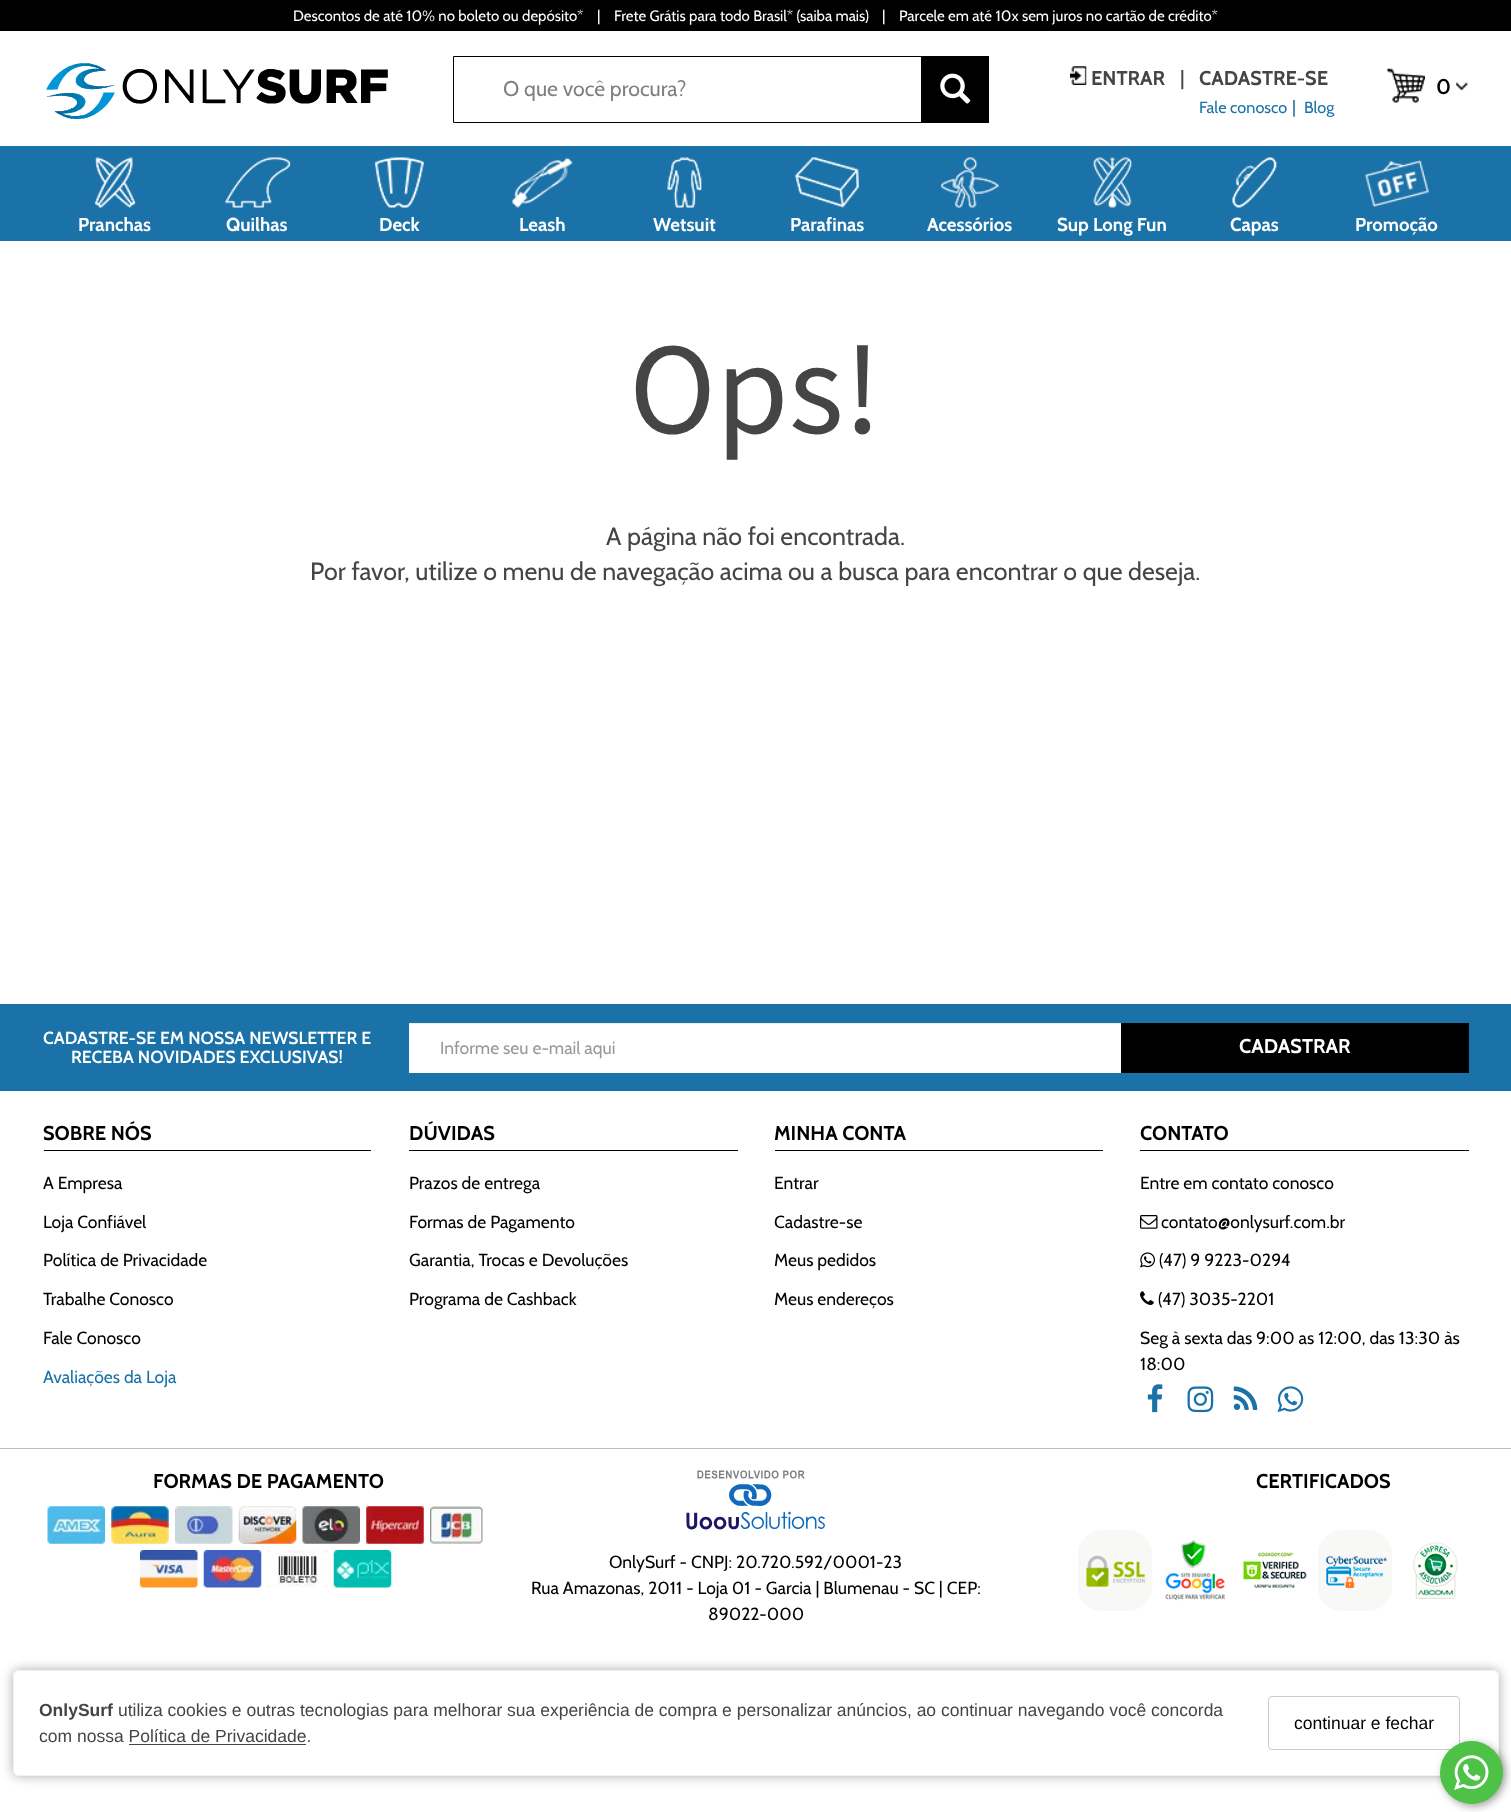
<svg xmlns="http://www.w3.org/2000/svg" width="1511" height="1812">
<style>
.a{font:15px Cabin;fill:#fff}
.b{font:21.25px Cabin;fill:#808080}
.c{font:bold 20px Cabin;fill:#454545}
.d{font:600 20px Cabin;fill:#454545}
.e{font:16.25px Cabin;fill:#1b72a8}
.f{font:17.5px Cabin;fill:#1b72a8}
.g{font:600 21.25px Cabin;fill:#000}
.h{font:bold 18.75px Cabin;fill:#fff}
.i{font:131px Source Sans Pro;fill:#454545}
.j{font:25px Cabin;fill:#454545}
.k{font:600 17.5px Cabin;fill:#fff}
.l{font:17.5px Cabin;fill:#999}
.m{font:bold 20px Cabin;fill:#fff}
.n{font:bold 20px Cabin;fill:#000}
.o{font:17.5px Cabin;fill:#000}
.p{font:bold 17.5px Liberation Sans;fill:#454545}
.q{font:17.5px Liberation Sans;fill:#454545}
.r{font:17.5px Liberation Sans;fill:#000}
</style>
<defs>
<clipPath id="clip1"><path d="M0 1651h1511v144h-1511zm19 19h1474c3.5 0 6 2.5 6 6v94c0 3.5-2.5 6-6 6h-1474c-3.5 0-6-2.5-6-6v-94c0-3.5 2.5-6 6-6z" clip-rule="evenodd"/></clipPath>
<clipPath id="clip2"><path d="M504 76h364v25H504z"/></clipPath>
</defs>
<rect width="100%" height="100%" fill="#fff"/>
<path fill="#000" d="M0 0h1511v31H0z"/>
<image href="1.png" x="46" y="63" width="342" height="56"/>
<path fill="none" stroke="#000" d="M453.5 56.5h470v66H453.5z"/>
<path fill="#000" d="M921 56h68v67H921z"/>
<image href="2.png" x="940" y="73" width="31" height="31"/>
<image href="3.png" x="1070" y="66" width="17" height="19"/>
<image href="4.png" x="1387" y="68" width="38" height="35"/>
<image href="5.png" x="1456" y="82" width="12" height="9"/>
<path fill="#1b72a8" d="M0 146h1511v95H0z"/>
<image href="6.png" x="94" y="157" width="42" height="51"/>
<image href="7.png" x="224" y="157" width="67" height="51"/>
<image href="8.png" x="374" y="157" width="50" height="51"/>
<image href="9.png" x="512" y="157" width="61" height="51"/>
<image href="10.png" x="667" y="157" width="35" height="51"/>
<image href="11.png" x="794" y="157" width="65" height="51"/>
<image href="12.png" x="941" y="157" width="58" height="51"/>
<image href="13.png" x="1093" y="157" width="39" height="51"/>
<image href="14.png" x="1232" y="157" width="45" height="51"/>
<image href="15.png" x="1364" y="160" width="65" height="47"/>
<path fill="#1b72a8" d="M0 1004h1511v87H0z"/>
<path fill="#fff" d="M409 1024h712v49H409z"/>
<path fill="#ececec" d="M409 1023h712v1H409z"/>
<path fill="#000" d="M1121 1023h348v50H1121z"/>
<path fill="#000" d="M44 1150h327v1H44z"/>
<path fill="#000" d="M409 1150h329v1H409z"/>
<path fill="#000" d="M775 1150h328v1H775z"/>
<path fill="#000" d="M1140 1150h329v1H1140z"/>
<image href="16.png" x="1140" y="1215" width="18" height="14"/>
<image href="17.png" x="1140" y="1252" width="15" height="16"/>
<image href="18.png" x="1140" y="1291" width="14" height="14"/>
<image href="19.png" x="1147" y="1384" width="16" height="29"/>
<image href="20.png" x="1187" y="1386" width="27" height="27"/>
<image href="21.png" x="1233" y="1386" width="25" height="24"/>
<image href="22.png" x="1277" y="1386" width="27" height="27"/>
<path fill="#bbb" d="M0 1448h1511v1H0z"/>
<image href="23.png" x="47" y="1506" width="58" height="38"/>
<image href="24.png" x="111" y="1506" width="58" height="38"/>
<image href="25.png" x="175" y="1506" width="58" height="38"/>
<image href="26.png" x="238" y="1506" width="59" height="38"/>
<image href="27.png" x="302" y="1506" width="58" height="38"/>
<image href="28.png" x="366" y="1506" width="58" height="38"/>
<image href="29.png" x="430" y="1506" width="53" height="38"/>
<image href="30.png" x="140" y="1550" width="58" height="38"/>
<image href="31.png" x="203" y="1550" width="59" height="38"/>
<image href="32.png" x="267" y="1550" width="61" height="38"/>
<image href="33.png" x="333" y="1550" width="59" height="38"/>
<image href="34.png" x="1078" y="1530" width="74" height="81"/>
<image href="35.png" x="1165" y="1539" width="61" height="62"/>
<image href="36.png" x="1242" y="1552" width="65" height="36"/>
<image href="37.png" x="1318" y="1530" width="74" height="81"/>
<image href="38.png" x="1413" y="1542" width="45" height="57"/>
<image href="39.png" x="686" y="1470" width="139" height="60"/>
<g clip-path="url(#clip1)">
<rect fill="#aaa" filter="blur(6px)" x="13" y="1670" width="1486" height="106" rx="6"/>
</g>
<rect fill="#fffffffa" stroke="#f2f2f2" x="13.5" y="1670.5" width="1485" height="105" rx="5.5"/>
<path fill="#454545" d="M129 1744h177v1H129z"/>
<rect fill="none" stroke="#ccc" x="1268.5" y="1696.5" width="191" height="53" rx="3.5"/>
<rect fill="#00000066" filter="blur(4px)" x="1443" y="1744" width="62" height="62" rx="31"/>
<circle fill="#4dc247" cx="1471.5" cy="1772.5" r="31.5"/>
<image href="40.png" x="1454" y="1755" width="35" height="35"/>
<text class="a" x="293" y="21">Descontos de até 10% no boleto ou depósito*</text>
<text class="a" x="597" y="21">|</text>
<text class="a" x="614" y="21">Frete Grátis para todo Brasil* (saiba mais)</text>
<text class="a" x="882" y="21">|</text>
<text class="a" x="899" y="21">Parcele em até 10x sem juros no cartão de crédito*</text>
<g clip-path="url(#clip2)">
<text class="b" x="503" y="96">O que você procura?</text>
</g>
<text class="c" x="1091" y="85">ENTRAR</text>
<text class="d" x="1180" y="85">|</text>
<text class="c" x="1199" y="85">CADASTRE-SE</text>
<text class="e" x="1199" y="113">Fale conosco</text>
<text class="f" x="1292" y="113">|</text>
<text class="e" x="1304" y="113">Blog</text>
<text class="g" x="1436" y="94">0</text>
<text class="h" x="78" y="231">Pranchas</text>
<text class="h" x="226" y="231">Quilhas</text>
<text class="h" x="379" y="231">Deck</text>
<text class="h" x="519" y="231">Leash</text>
<text class="h" x="653" y="231">Wetsuit</text>
<text class="h" x="790" y="231">Parafinas</text>
<text class="h" x="927" y="231">Acessórios</text>
<text class="h" x="1057" y="231">Sup Long Fun</text>
<text class="h" x="1230" y="231">Capas</text>
<text class="h" x="1355" y="231">Promoção</text>
<text class="i" x="629" y="433">Ops!</text>
<text class="j" x="606" y="545">A página não foi encontrada.</text>
<text class="j" x="310" y="580">Por favor, utilize o menu de navegação acima ou a busca para encontrar o que deseja.</text>
<text class="k" x="43" y="1044">CADASTRE-SE EM NOSSA NEWSLETTER E</text>
<text class="k" x="71" y="1063">RECEBA NOVIDADES EXCLUSIVAS!</text>
<text class="l" x="440" y="1054">Informe seu e-mail aqui</text>
<text class="m" x="1239" y="1053">CADASTRAR</text>
<text class="n" x="43" y="1140">SOBRE NÓS</text>
<text class="o" x="43" y="1189">A Empresa</text>
<text class="o" x="43" y="1228">Loja Confiável</text>
<text class="o" x="43" y="1266">Política de Privacidade</text>
<text class="o" x="43" y="1305">Trabalhe Conosco</text>
<text class="o" x="43" y="1344">Fale Conosco</text>
<text class="f" x="43" y="1383">Avaliações da Loja</text>
<text class="n" x="409" y="1140">DÚVIDAS</text>
<text class="o" x="409" y="1189">Prazos de entrega</text>
<text class="o" x="409" y="1228">Formas de Pagamento</text>
<text class="o" x="409" y="1266">Garantia, Trocas e Devoluções</text>
<text class="o" x="409" y="1305">Programa de Cashback</text>
<text class="n" x="774" y="1140">MINHA CONTA</text>
<text class="o" x="774" y="1189">Entrar</text>
<text class="o" x="774" y="1228">Cadastre-se</text>
<text class="o" x="774" y="1266">Meus pedidos</text>
<text class="o" x="774" y="1305">Meus endereços</text>
<text class="n" x="1140" y="1140">CONTATO</text>
<text class="o" x="1140" y="1189">Entre em contato conosco</text>
<text class="o" x="1161" y="1228">contato@onlysurf.com.br</text>
<text class="o" x="1159" y="1266">(47) 9 9223-0294</text>
<text class="o" x="1158" y="1305">(47) 3035-2201</text>
<text class="o" x="1140" y="1344">Seg à sexta das 9:00 as 12:00, das 13:30 às</text>
<text class="o" x="1140" y="1370">18:00</text>
<text class="n" x="153" y="1488">FORMAS DE PAGAMENTO</text>
<text class="n" x="1256" y="1488">CERTIFICADOS</text>
<text class="o" x="609" y="1568">OnlySurf - CNPJ: 20.720.592/0001-23</text>
<text class="o" x="531" y="1594">Rua Amazonas, 2011 - Loja 01 - Garcia | Blumenau - SC | CEP:</text>
<text class="o" x="708" y="1620">89022-000</text>
<text class="p" x="39" y="1716">OnlySurf</text>
<text class="q" x="118" y="1716">utiliza cookies e outras tecnologias para melhorar sua experiência de compra e personalizar anúncios, ao continuar navegando você concorda</text>
<text class="q" x="39" y="1742">com nossa Política de Privacidade.</text>
<text class="r" x="1294" y="1729">continuar e fechar</text>
</svg>
